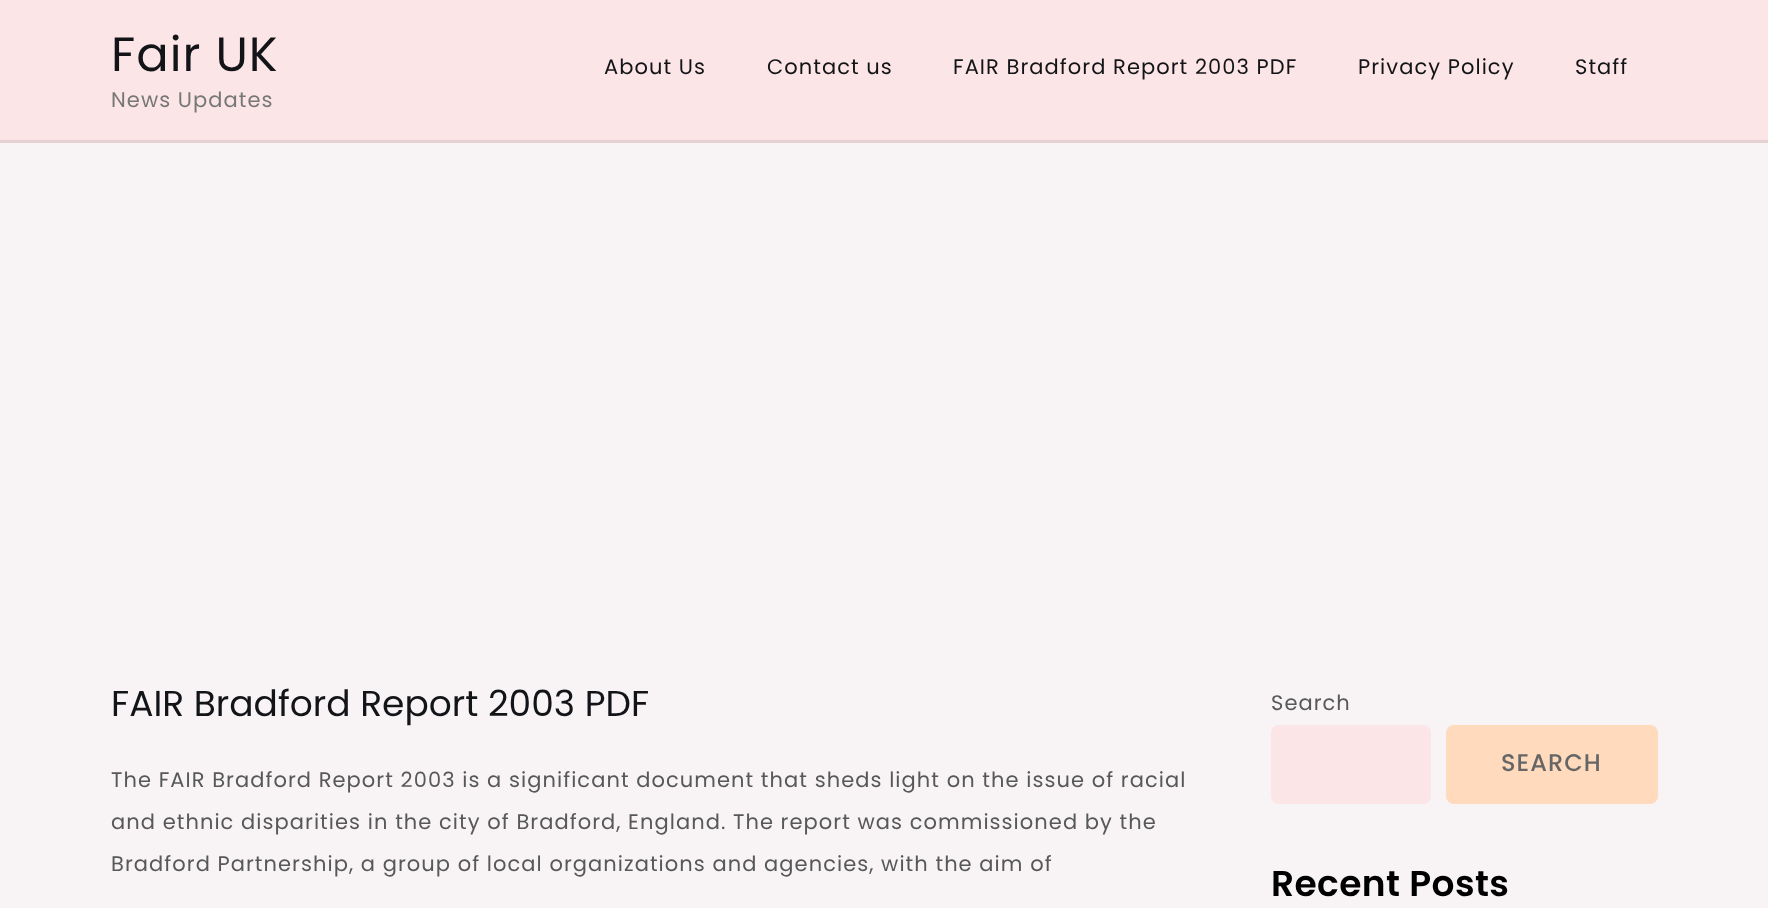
<svg xmlns="http://www.w3.org/2000/svg" width="1768" height="908">
<style>
.a{font:48px Poppins;letter-spacing:1.05px;fill:#121418}
.b{font:21px Poppins;letter-spacing:1.05px;fill:#777}
.c{font:21px Poppins;letter-spacing:1.05px;fill:#121418}
.d{font:36px Poppins;fill:#121418}
.e{font:21px Poppins;letter-spacing:1.05px;fill:#565859}
.f{font:500 24px Poppins;letter-spacing:1.05px;fill:#666}
.g{font:600 36px Poppins;letter-spacing:0.4px;fill:#000}
</style>
<rect width="100%" height="100%" fill="#f8f3f4"/>
<path fill="#fce5e6" d="M0 0h1768v140H0z"/>
<path fill="#e6d1d2" d="M0 140h1768v3H0z"/>
<rect fill="#fce5e6" x="1271" y="725" width="160" height="79" rx="8"/>
<rect fill="#ffdabc" stroke="#ffdabc" stroke-width="3" x="1447.5" y="726.5" width="209" height="76" rx="6.5"/>
<text class="a" x="111" y="71">Fair UK</text>
<text class="b" x="111" y="107">News Updates</text>
<text class="c" x="604" y="74">About Us</text>
<text class="c" x="767" y="74">Contact us</text>
<text class="c" x="953" y="74">FAIR Bradford Report 2003 PDF</text>
<text class="c" x="1358" y="74">Privacy Policy</text>
<text class="c" x="1575" y="74">Staff</text>
<text class="d" x="111" y="716">FAIR Bradford Report 2003 PDF</text>
<text class="e" x="111" y="787">The FAIR Bradford Report 2003 is a significant document that sheds light on the issue of racial</text>
<text class="e" x="111" y="829">and ethnic disparities in the city of Bradford, England. The report was commissioned by the</text>
<text class="e" x="111" y="871">Bradford Partnership, a group of local organizations and agencies, with the aim of</text>
<text class="e" x="1271" y="710">Search</text>
<text class="f" x="1501" y="771">SEARCH</text>
<text class="g" x="1271" y="896">Recent Posts</text>
</svg>
